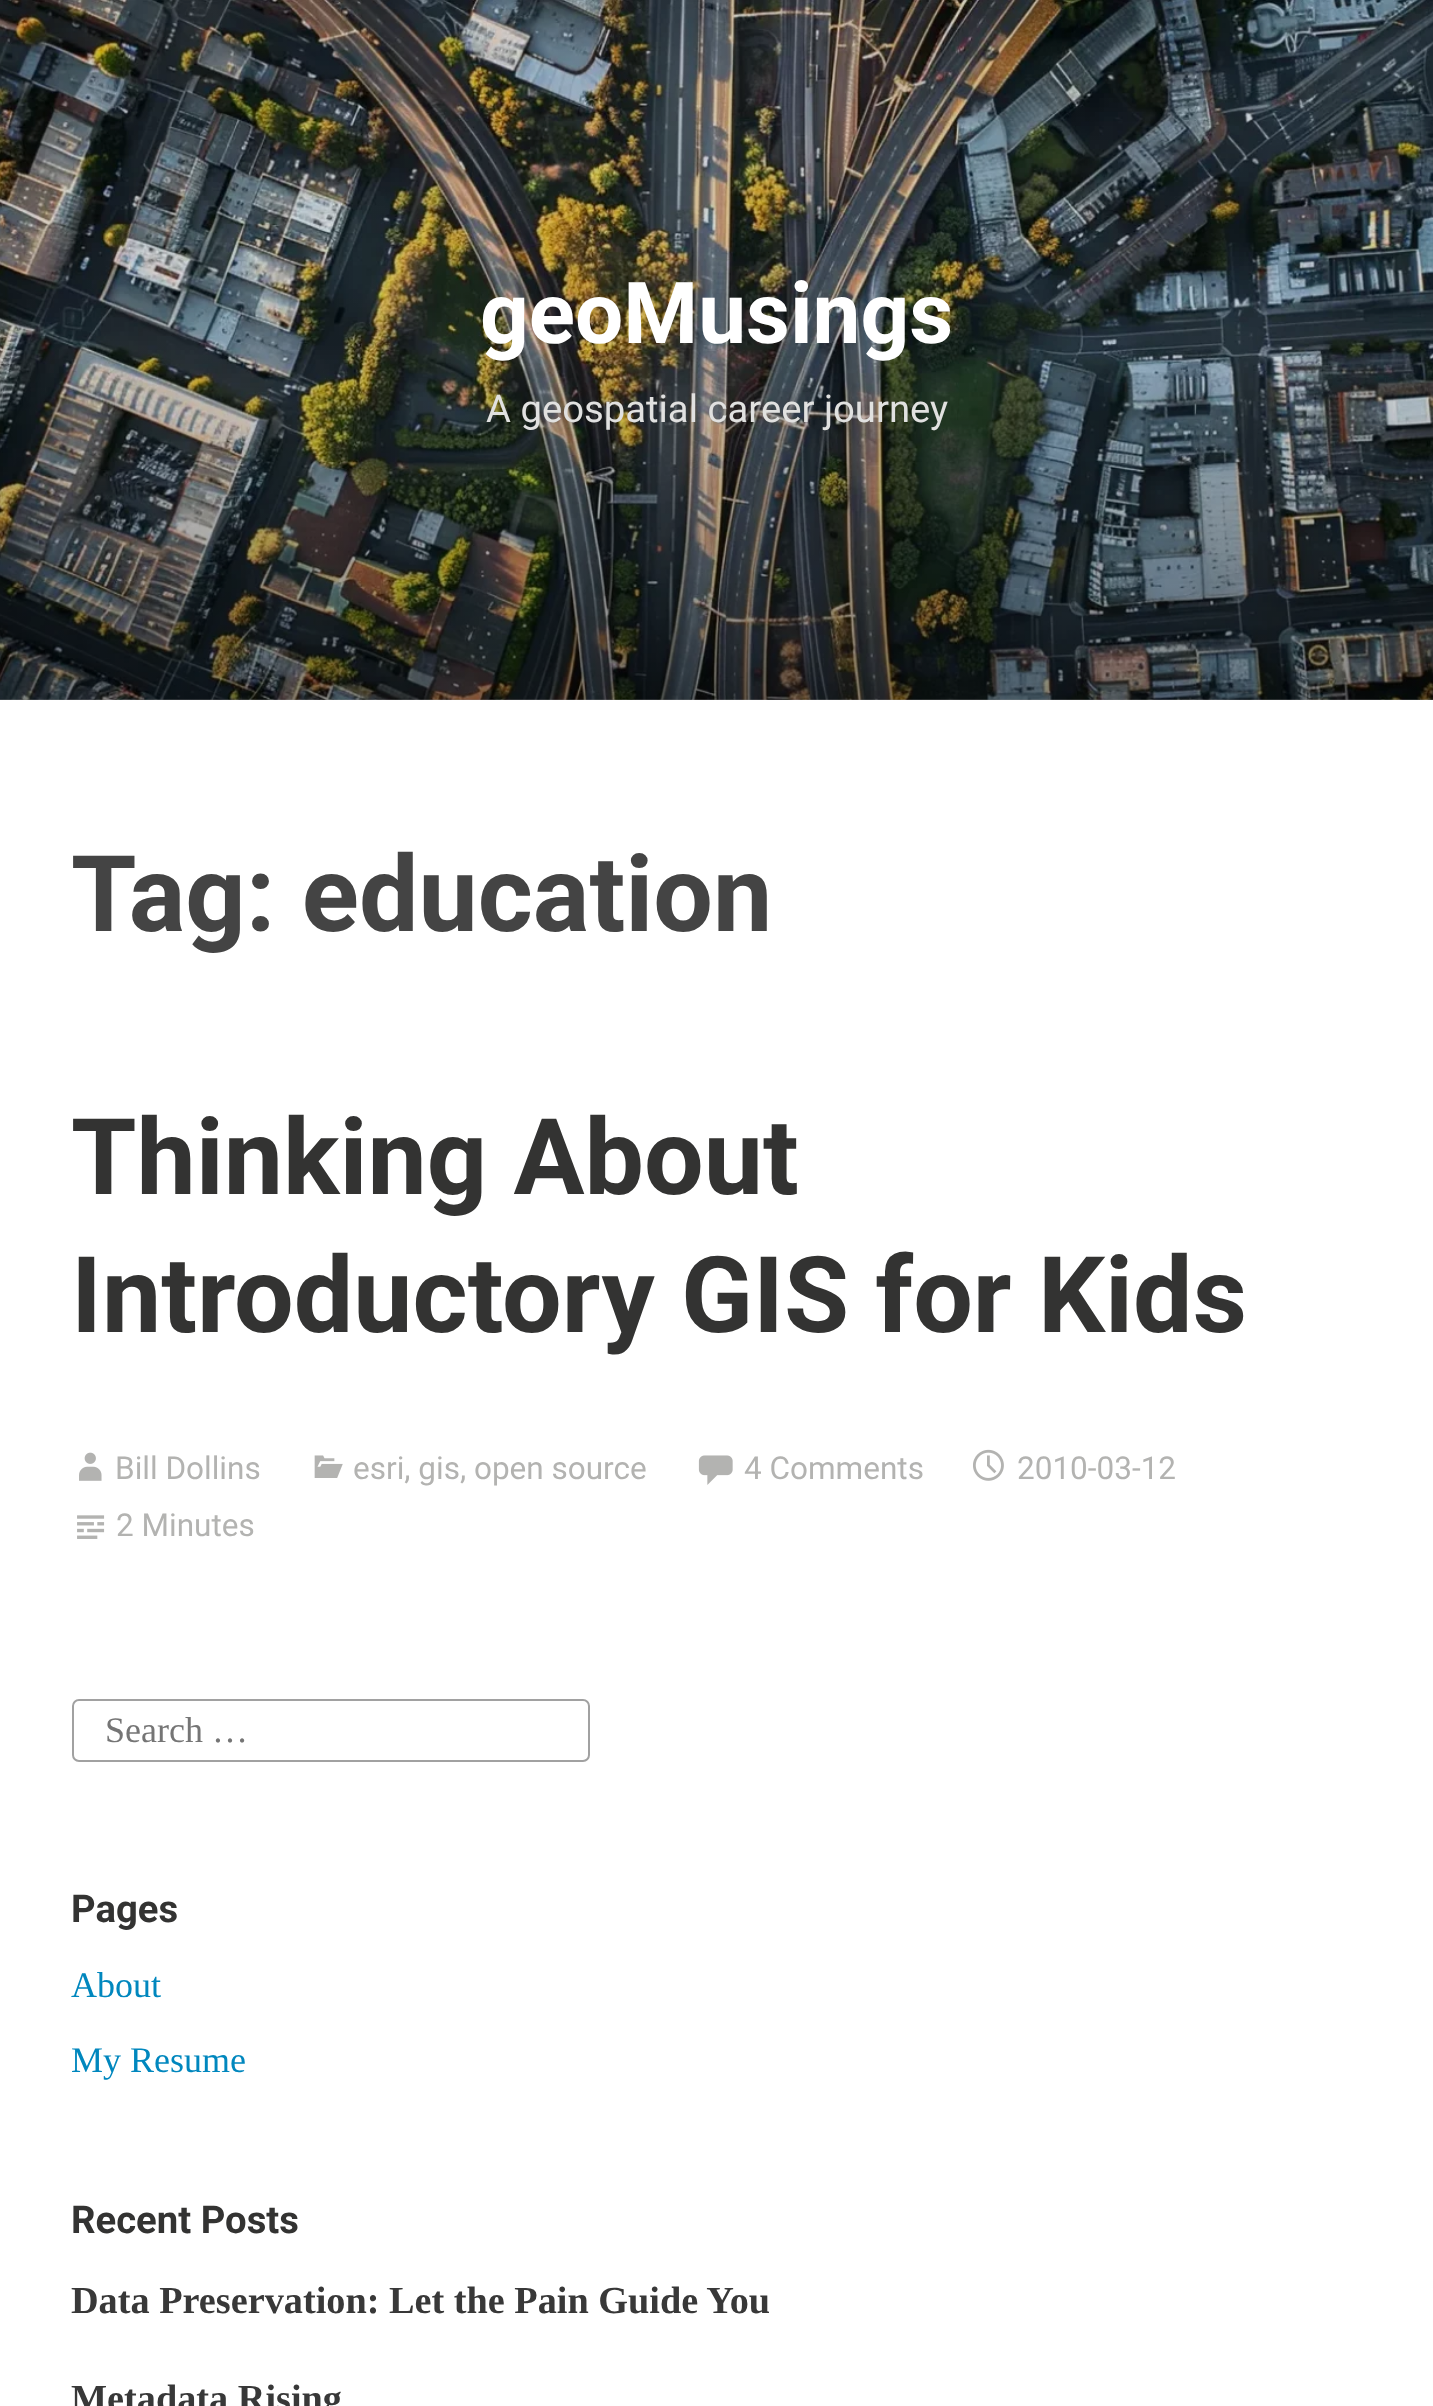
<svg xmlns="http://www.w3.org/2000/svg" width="1433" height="2406">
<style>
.a{font:bold 85.5px Roboto;fill:#fff}
.b{font:38.25px Roboto;fill:#e1e1e0}
.c{font:bold 105.75px Roboto;fill:#444}
.d{font:bold 105.75px Roboto;fill:#333332}
.e{font:31.5px Roboto;fill:#b3b3b1}
.f{font:36px Liberation Serif;fill:#757575}
.g{font:bold 38.25px Roboto;fill:#333332}
.h{font:36px Liberation Serif;fill:#0087be}
.i{font:bold 38.25px Liberation Serif;fill:#383838}
</style>
<defs>
<linearGradient id="g1" gradientUnits="userSpaceOnUse" x1="717" y1="0" x2="717" y2="700"><stop offset="0.5" stop-color="#000" stop-opacity="0.15"/><stop offset="1" stop-color="#000" stop-opacity="0.45"/></linearGradient>
</defs>
<rect width="100%" height="100%" fill="#fff"/>
<image href="1.png" x="0" y="0" width="1433" height="700"/>
<path fill="url(#g1)" d="M0 0h1433v700H0z"/>
<image href="2.png" x="79" y="1452" width="23" height="29"/>
<image href="3.png" x="314" y="1455" width="29" height="23"/>
<image href="4.png" x="698" y="1455" width="35" height="30"/>
<image href="5.png" x="973" y="1449" width="31" height="32"/>
<image href="6.png" x="77" y="1515" width="28" height="24"/>
<rect fill="none" stroke="#a1a1a1" stroke-width="2" x="73" y="1700" width="516" height="61" rx="6"/>
<text class="a" x="480" y="343">geoMusings</text>
<text class="b" x="486" y="422">A geospatial career journey</text>
<text class="c" x="71" y="931">Tag: education</text>
<text class="d" x="71" y="1194">Thinking About</text>
<text class="d" x="71" y="1332">Introductory GIS for Kids</text>
<text class="e" x="115" y="1479">Bill Dollins</text>
<text class="e" x="353" y="1479">esri, gis, open source</text>
<text class="e" x="744" y="1479">4 Comments</text>
<text class="e" x="1017" y="1479">2010-03-12</text>
<text class="e" x="116" y="1536">2 Minutes</text>
<text class="f" x="105" y="1742">Search …</text>
<text class="g" x="71" y="1922">Pages</text>
<text class="h" x="71" y="1997">About</text>
<text class="h" x="71" y="2072">My Resume</text>
<text class="g" x="71" y="2233">Recent Posts</text>
<text class="i" x="71" y="2313">Data Preservation: Let the Pain Guide You</text>
<text class="i" x="71" y="2411">Metadata Rising</text>
</svg>
